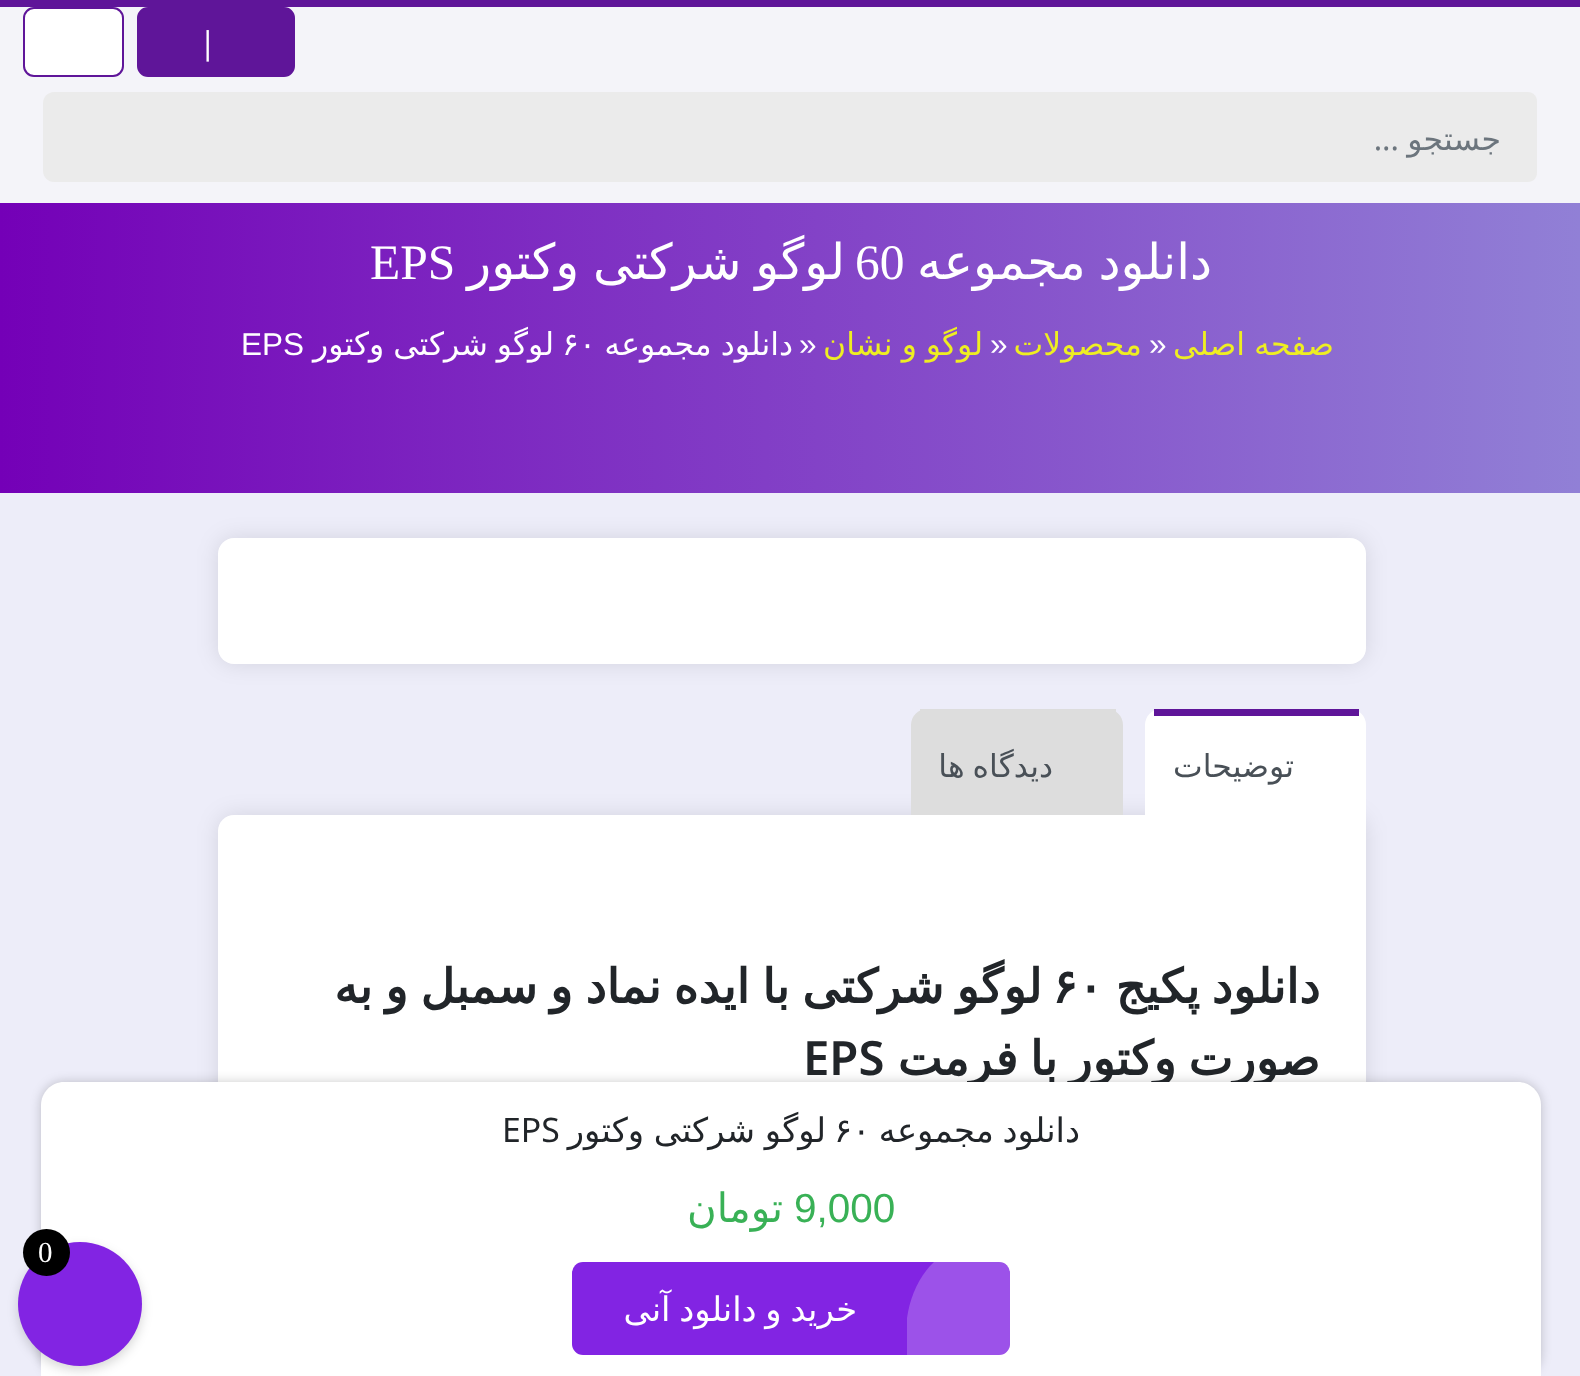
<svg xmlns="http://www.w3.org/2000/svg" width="1580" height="1376">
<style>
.a{font:31.5px Noto Sans;fill:#fff}
.b{font:31.5px DejaVu Sans;direction:rtl;fill:#6c757d}
.c{font:31.5px Noto Sans;direction:rtl;fill:#6c757d}
.d{font:49.5px DejaVu Sans;direction:rtl;fill:#fff}
.e{font:49.5px Liberation Serif;fill:#fff}
.f{font:31.5px DejaVu Sans;direction:rtl;fill:#ee2}
.g{font:31.5px Liberation Sans;fill:#fff}
.h{font:31.5px DejaVu Sans;direction:rtl;fill:#fff}
.i{font:31.5px DejaVu Sans;fill:#fff}
.j{font:31.5px DejaVu Sans;direction:rtl;fill:#495057}
.k{font:bold 47.25px DejaVu Sans;direction:rtl;fill:#212529}
.l{font:bold 47.25px DejaVu Sans;fill:#212529}
.m{font:600 47.25px Noto Sans;fill:#212529}
.n{font:33.75px DejaVu Sans;direction:rtl;fill:#212529}
.o{font:33.75px DejaVu Sans;fill:#212529}
.p{font:33.75px Noto Sans;fill:#212529}
.q{font:40.5px Liberation Sans;fill:#39b156}
.r{font:40.5px DejaVu Sans;direction:rtl;fill:#39b156}
.s{font:33.75px DejaVu Sans;direction:rtl;fill:#fff}
.t{font:29px Liberation Serif;fill:#fff}
</style>
<defs>
<linearGradient id="g1" gradientUnits="userSpaceOnUse" x1="0" y1="348" x2="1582" y2="348"><stop offset="0" stop-color="#7400b7"/><stop offset="1" stop-color="#9180d6"/></linearGradient>
<clipPath id="clip1"><path d="M263 893h1058v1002H263z"/></clipPath>
</defs>
<rect width="100%" height="100%" fill="#ededf9"/>
<path fill="#5f1599" d="M0 0h1580v7H0z"/>
<path fill="#f4f4f9" d="M0 7h1580v196H0z"/>
<rect fill="#5f1599" stroke="#5f1599" stroke-width="2" x="138" y="8" width="156" height="68" rx="10"/>
<rect fill="#fff" stroke="#5f1599" stroke-width="2" x="24" y="8" width="99" height="68" rx="10"/>
<path fill="#ebebeb" d="M126 92h1402c5 0 9 4 9 9v72c0 5-4 9-9 9h-1402z"/>
<path fill="#ebebeb" d="M54 92h72v90h-72c-6 0-11-5-11-11v-68c0-6 5-11 11-11z"/>
<path fill="url(#g1)" d="M0 203h1580v290H0z"/>
<rect fill="#0000001a" filter="blur(11px)" x="218" y="538" width="1148" height="126" rx="16"/>
<rect fill="#fff" x="218" y="538" width="1148" height="126" rx="16"/>
<rect fill="#0000001a" filter="blur(11px)" x="218" y="815" width="1148" height="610" rx="16"/>
<path fill="#fff" d="M1161 709h189c9 0 16 7 16 16v90h-221v-90c0-9 7-16 16-16z"/>
<path fill="#5f1599" d="M1154 709h205v7H1154z"/>
<path fill="#ddd" d="M927 709h180c9 0 16 7 16 16v90h-212v-90c0-9 7-16 16-16z"/>
<path fill="#ddd" d="M920 709h196v3H920z"/>
<path fill="#fff" d="M234 815h1132v561c0 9-7 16-16 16h-1116c-9 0-16-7-16-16v-545c0-9 7-16 16-16z"/>
<rect fill="#00000033" filter="blur(5.5px)" x="41" y="1082" width="1500" height="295" rx="23"/>
<text class="a" x="199" y="54">|</text>
<text class="b" x="1501" y="150">جستجو</text>
<text class="c" x="1399" y="150">...</text>
<text class="d" x="1212" y="279" word-spacing="-3">دانلود مجموعه</text>
<text class="e" x="855" y="279">60</text>
<text class="d" x="845" y="279" word-spacing="-2">لوگو شرکتی وکتور</text>
<text class="e" x="370" y="279">EPS</text>
<text class="f" x="1334" y="355" word-spacing="-1">صفحه اصلی</text>
<text class="g" x="1149" y="355">»</text>
<text class="f" x="1142" y="355">محصولات</text>
<text class="g" x="990" y="355">»</text>
<text class="f" x="983" y="355" word-spacing="-1">لوگو و نشان</text>
<text class="g" x="799" y="355">»</text>
<text class="h" x="793" y="355" word-spacing="-1">دانلود مجموعه</text>
<text class="i" x="562" y="355">۶۰</text>
<text class="h" x="554" y="355" word-spacing="-1">لوگو شرکتی وکتور</text>
<text class="g" x="241" y="355">EPS</text>
<text class="j" x="1294" y="777">توضیحات</text>
<text class="j" x="1053" y="777" word-spacing="-2">دیدگاه ها</text>
<text class="k" x="1320" y="1003" word-spacing="-3">دانلود پکیج</text>
<text class="k" x="1042" y="1003" word-spacing="-2.5">لوگو شرکتی با ایده نماد و سمبل و به</text>
<text class="l" x="1052" y="1003">۶۰</text>
<g clip-path="url(#clip1)">
<text class="k" x="1320" y="1075" word-spacing="-3">صورت وکتور با فرمت</text>
</g>
<text class="m" x="803" y="1075">EPS</text>
<path fill="#fff" d="M64 1082h1454c12.5 0 23 10.5 23 23v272h-1500v-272c0-12.5 10.5-23 23-23z"/>
<text class="n" x="1080" y="1142" word-spacing="-2">دانلود مجموعه</text>
<text class="o" x="834" y="1142">۶۰</text>
<text class="n" x="826" y="1142" word-spacing="-1">لوگو شرکتی وکتور</text>
<text class="p" x="502" y="1142">EPS</text>
<text class="q" x="794" y="1222">9,000</text>
<text class="r" x="783" y="1222">تومان</text>
<rect fill="#8224e3" x="572" y="1262" width="438" height="93" rx="11"/>
<path fill="#ffffff36" d="M907 1355v-18v-19c3-21 12-42 27-56h65c6 0 11 5 11 11v71c0 6-5 11-11 11z"/>
<text class="s" x="857" y="1321" word-spacing="-2">خرید و دانلود آنی</text>
<rect fill="#00000029" filter="blur(5.5px)" x="18" y="1247" width="124" height="123" rx="61.5"/>
<circle fill="#8224e3" cx="80" cy="1304" r="62"/>
<circle fill="#000" cx="46.5" cy="1252.5" r="23.5"/>
<text class="t" x="38" y="1262">0</text>
</svg>
